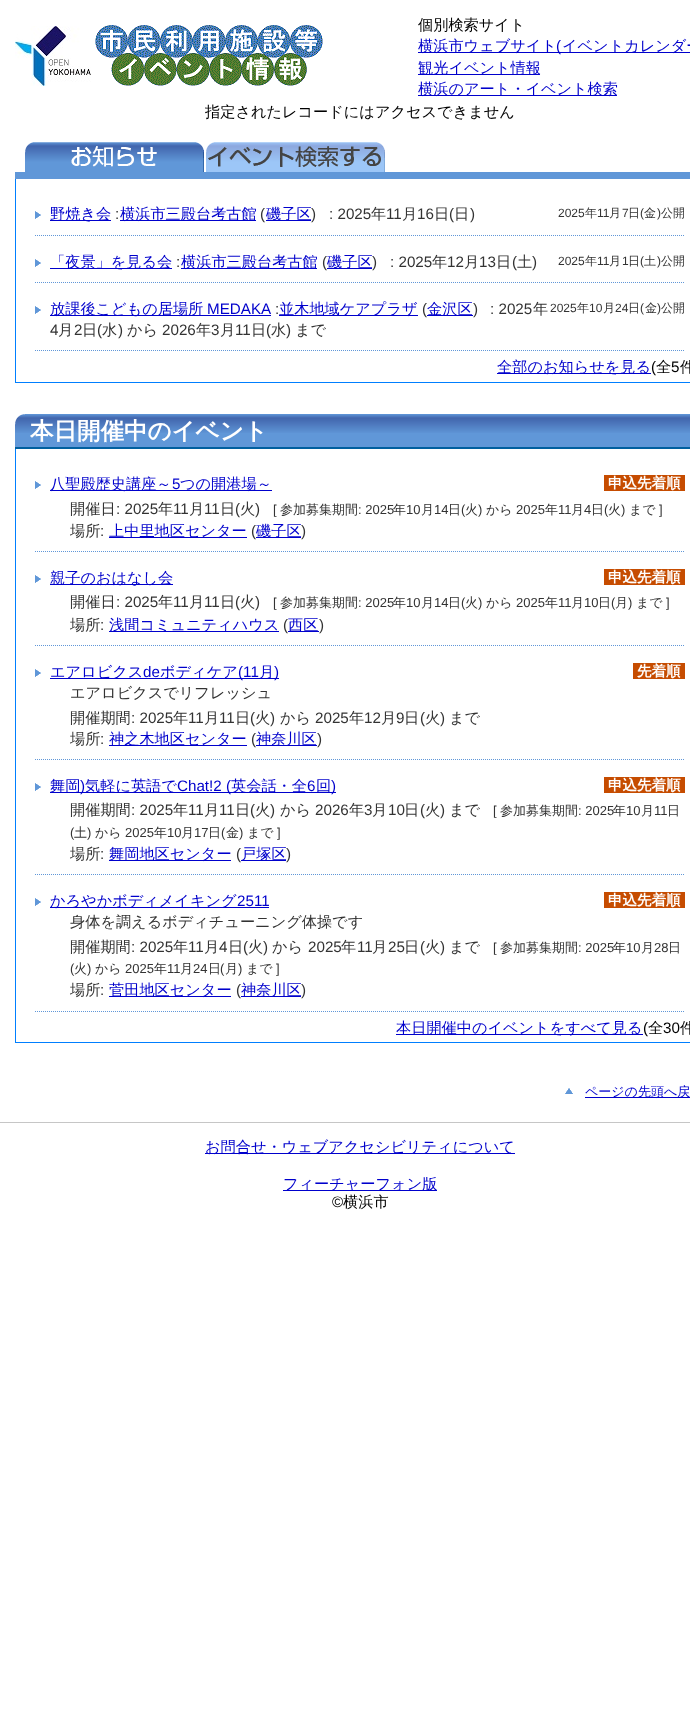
<svg xmlns="http://www.w3.org/2000/svg" width="690" height="1718">
<style>
.a{font:500 15.2px WenQuanYi Zen Hei;fill:#000}
.b{font:500 15.2px WenQuanYi Zen Hei;fill:#00c}
.c{font:15.2px Liberation Sans;fill:#00c}
.d{font:15.2px Liberation Sans;fill:#333}
.e{font:500 15.2px WenQuanYi Zen Hei;fill:#333}
.f{font:12px Liberation Sans;fill:#333}
.g{font:500 12px WenQuanYi Zen Hei;fill:#333}
.h{font:15.2px Liberation Sans;fill:#000}
.i{font:bold 23.5px WenQuanYi Zen Hei;fill:#fff}
.j{font:bold 14.5px WenQuanYi Zen Hei;fill:#fff}
.k{font:13px Liberation Sans;fill:#333}
.l{font:500 13px WenQuanYi Zen Hei;fill:#333}
.m{font:500 13px WenQuanYi Zen Hei;fill:#00c}
</style>
<rect width="100%" height="100%" fill="#fff"/>
<image href="1.png" x="15" y="26" width="76" height="60"/>
<image href="2.png" x="95" y="25" width="228" height="61"/>
<path fill="#00c" d="M418 52h272v1H418z"/>
<path fill="#00c" d="M418 74h122v1H418z"/>
<path fill="#00c" d="M418 95h199v1H418z"/>
<path fill="#6097d8" d="M15 172h675v7H15z"/>
<image href="3.png" x="25" y="142" width="179" height="30"/>
<image href="4.png" x="206" y="142" width="179" height="30"/>
<path fill="#007fff" d="M15 382h675v1H15z"/>
<path fill="#007fff" d="M15 179h1v204H15z"/>
<image href="5.png" x="35" y="211" width="6" height="8"/>
<path fill="none" stroke="#6097d8" stroke-dasharray="1 1" d="M35 235.5h650"/>
<path fill="#00c" d="M50 220h61v1H50z"/>
<path fill="#00c" d="M120 220h136v1H120z"/>
<path fill="#00c" d="M266 220h45v1H266z"/>
<image href="5.png" x="35" y="259" width="6" height="8"/>
<path fill="none" stroke="#6097d8" stroke-dasharray="1 1" d="M35 282.5h650"/>
<path fill="#00c" d="M50 268h122v1H50z"/>
<path fill="#00c" d="M181 268h136v1H181z"/>
<path fill="#00c" d="M327 268h45v1H327z"/>
<image href="5.png" x="35" y="306" width="6" height="8"/>
<path fill="none" stroke="#6097d8" stroke-dasharray="1 1" d="M35 350.5h650"/>
<path fill="#00c" d="M50 315h221v1H50z"/>
<path fill="#00c" d="M279 315h139v1H279z"/>
<path fill="#00c" d="M427 315h46v1H427z"/>
<path fill="#00c" d="M497 373h154v1H497z"/>
<path fill="#6097d8" d="M15 433h675v14H15z"/>
<image href="6.png" x="15" y="414" width="675" height="19"/>
<path fill="#005f9f" d="M15 447h675v2H15z"/>
<image href="7.png" x="15" y="414" width="10" height="11"/>
<path fill="#007fff" d="M15 1042h675v1H15z"/>
<path fill="#007fff" d="M15 449h1v594H15z"/>
<image href="5.png" x="35" y="481" width="6" height="8"/>
<path fill="none" stroke="#6097d8" stroke-dasharray="1 1" d="M35 551.5h650"/>
<path fill="#00c" d="M50 490h222v1H50z"/>
<path fill="#c64c00" d="M604 475h81v16H604z"/>
<path fill="#00c" d="M109 537h138v1H109z"/>
<path fill="#00c" d="M256 537h45v1H256z"/>
<image href="5.png" x="35" y="575" width="6" height="8"/>
<path fill="none" stroke="#6097d8" stroke-dasharray="1 1" d="M35 645.5h650"/>
<path fill="#00c" d="M50 584h123v1H50z"/>
<path fill="#c64c00" d="M604 569h81v16H604z"/>
<path fill="#00c" d="M109 631h170v1H109z"/>
<image href="5.png" x="35" y="669" width="6" height="8"/>
<path fill="none" stroke="#6097d8" stroke-dasharray="1 1" d="M35 759.5h650"/>
<path fill="#00c" d="M50 678h229v1H50z"/>
<path fill="#c64c00" d="M633 663h52v16H633z"/>
<path fill="#00c" d="M109 745h138v1H109z"/>
<path fill="#00c" d="M256 745h61v1H256z"/>
<image href="5.png" x="35" y="783" width="6" height="8"/>
<path fill="none" stroke="#6097d8" stroke-dasharray="1 1" d="M35 874.5h650"/>
<path fill="#00c" d="M50 792h286v1H50z"/>
<path fill="#c64c00" d="M604 777h81v16H604z"/>
<path fill="#00c" d="M109 860h122v1H109z"/>
<path fill="#00c" d="M241 860h45v1H241z"/>
<image href="5.png" x="35" y="898" width="6" height="8"/>
<path fill="none" stroke="#6097d8" stroke-dasharray="1 1" d="M35 1011.5h650"/>
<path fill="#00c" d="M50 907h219v1H50z"/>
<path fill="#c64c00" d="M604 892h81v16H604z"/>
<path fill="#00c" d="M109 996h122v1H109z"/>
<path fill="#00c" d="M241 996h60v1H241z"/>
<path fill="#00c" d="M396 1034h247v1H396z"/>
<image href="8.png" x="565" y="1088" width="8" height="6"/>
<path fill="#00c" d="M585 1097h105v1H585z"/>
<path fill="#c6c6c6" d="M0 1122h690v1H0z"/>
<path fill="#00c" d="M205 1153h310v1H205z"/>
<path fill="#00c" d="M283 1190h154v1H283z"/>
<text class="a" x="418" y="30">個別検索サイト</text>
<text class="b" x="418" y="51">横浜市ウェブサイト</text>
<text class="c" x="556" y="51">(</text>
<text class="b" x="562" y="51">イベントカレンダー</text>
<text class="b" x="418" y="73">観光イベント情報</text>
<text class="b" x="418" y="94">横浜のアート・イベント検索</text>
<text class="a" x="205" y="117">指定されたレコードにはアクセスできません</text>
<text class="b" x="50" y="219">野焼き会</text>
<text class="d" x="115" y="219">:</text>
<text class="b" x="120" y="219">横浜市三殿台考古館</text>
<text class="d" x="260" y="219">(</text>
<text class="b" x="266" y="219">磯子区</text>
<text class="d" x="311" y="219">)</text>
<text class="d" x="329" y="219">: 2025</text>
<text class="e" x="371" y="219">年</text>
<text class="d" x="386" y="219">11</text>
<text class="e" x="402" y="219">月</text>
<text class="d" x="417" y="219">16</text>
<text class="e" x="434" y="219">日</text>
<text class="d" x="449" y="219">(</text>
<text class="e" x="454" y="219">日</text>
<text class="d" x="470" y="219">)</text>
<text class="f" x="558" y="217">2025</text>
<text class="g" x="585" y="217">年</text>
<text class="f" x="597" y="217">11</text>
<text class="g" x="609" y="217">月</text>
<text class="f" x="622" y="217">7</text>
<text class="g" x="628" y="217">日</text>
<text class="f" x="640" y="217">(</text>
<text class="g" x="644" y="217">金</text>
<text class="f" x="657" y="217">)</text>
<text class="g" x="661" y="217">公開</text>
<text class="b" x="50" y="267">「夜景」を見る会</text>
<text class="d" x="176" y="267">:</text>
<text class="b" x="181" y="267">横浜市三殿台考古館</text>
<text class="d" x="322" y="267">(</text>
<text class="b" x="327" y="267">磯子区</text>
<text class="d" x="372" y="267">)</text>
<text class="d" x="390" y="267">: 2025</text>
<text class="e" x="432" y="267">年</text>
<text class="d" x="447" y="267">12</text>
<text class="e" x="464" y="267">月</text>
<text class="d" x="479" y="267">13</text>
<text class="e" x="496" y="267">日</text>
<text class="d" x="512" y="267">(</text>
<text class="e" x="517" y="267">土</text>
<text class="d" x="532" y="267">)</text>
<text class="f" x="558" y="265">2025</text>
<text class="g" x="585" y="265">年</text>
<text class="f" x="597" y="265">11</text>
<text class="g" x="609" y="265">月</text>
<text class="f" x="622" y="265">1</text>
<text class="g" x="628" y="265">日</text>
<text class="f" x="640" y="265">(</text>
<text class="g" x="644" y="265">土</text>
<text class="f" x="657" y="265">)</text>
<text class="g" x="661" y="265">公開</text>
<text class="b" x="50" y="314">放課後こどもの居場所</text>
<text class="c" x="207" y="314">MEDAKA</text>
<text class="d" x="275" y="314">:</text>
<text class="b" x="279" y="314">並木地域ケアプラザ</text>
<text class="d" x="422" y="314">(</text>
<text class="b" x="427" y="314">金沢区</text>
<text class="d" x="473" y="314">)</text>
<text class="d" x="490" y="314">: 2025</text>
<text class="e" x="533" y="314">年</text>
<text class="f" x="550" y="312">2025</text>
<text class="g" x="577" y="312">年</text>
<text class="f" x="589" y="312">10</text>
<text class="g" x="603" y="312">月</text>
<text class="f" x="615" y="312">24</text>
<text class="g" x="628" y="312">日</text>
<text class="f" x="640" y="312">(</text>
<text class="g" x="645" y="312">金</text>
<text class="f" x="657" y="312">)</text>
<text class="g" x="661" y="312">公開</text>
<text class="d" x="50" y="335">4</text>
<text class="e" x="58" y="335">月</text>
<text class="d" x="74" y="335">2</text>
<text class="e" x="82" y="335">日</text>
<text class="d" x="97" y="335">(</text>
<text class="e" x="102" y="335">水</text>
<text class="d" x="118" y="335">)</text>
<text class="e" x="127" y="335">から</text>
<text class="d" x="162" y="335">2026</text>
<text class="e" x="196" y="335">年</text>
<text class="d" x="211" y="335">3</text>
<text class="e" x="220" y="335">月</text>
<text class="d" x="235" y="335">11</text>
<text class="e" x="251" y="335">日</text>
<text class="d" x="266" y="335">(</text>
<text class="e" x="271" y="335">水</text>
<text class="d" x="286" y="335">)</text>
<text class="e" x="295" y="335">まで</text>
<text class="b" x="497" y="372">全部のお知らせを見る</text>
<text class="h" x="651" y="372">(</text>
<text class="a" x="656" y="372">全</text>
<text class="h" x="671" y="372">5</text>
<text class="a" x="680" y="372">件</text>
<text class="i" x="30" y="439">本日開催中のイベント</text>
<text class="b" x="50" y="489">八聖殿歴史講座～</text>
<text class="c" x="172" y="489">5</text>
<text class="b" x="180" y="489">つの開港場～</text>
<text class="j" x="608" y="488">申込先着順</text>
<text class="e" x="70" y="514">開催日</text>
<text class="d" x="116" y="514">: 2025</text>
<text class="e" x="158" y="514">年</text>
<text class="d" x="173" y="514">11</text>
<text class="e" x="189" y="514">月</text>
<text class="d" x="204" y="514">11</text>
<text class="e" x="220" y="514">日</text>
<text class="d" x="235" y="514">(</text>
<text class="e" x="240" y="514">火</text>
<text class="d" x="255" y="514">)</text>
<text class="k" x="273" y="514">[</text>
<text class="l" x="280" y="514">参加募集期間</text>
<text class="k" x="358" y="514">: 2025</text>
<text class="l" x="393" y="514">年</text>
<text class="k" x="406" y="514">10</text>
<text class="l" x="421" y="514">月</text>
<text class="k" x="434" y="514">14</text>
<text class="l" x="448" y="514">日</text>
<text class="k" x="461" y="514">(</text>
<text class="l" x="465" y="514">火</text>
<text class="k" x="478" y="514">)</text>
<text class="l" x="486" y="514">から</text>
<text class="k" x="516" y="514">2025</text>
<text class="l" x="545" y="514">年</text>
<text class="k" x="558" y="514">11</text>
<text class="l" x="571" y="514">月</text>
<text class="k" x="584" y="514">4</text>
<text class="l" x="591" y="514">日</text>
<text class="k" x="604" y="514">(</text>
<text class="l" x="608" y="514">火</text>
<text class="k" x="621" y="514">)</text>
<text class="l" x="629" y="514">まで</text>
<text class="k" x="659" y="514">]</text>
<text class="e" x="70" y="536">場所</text>
<text class="d" x="100" y="536">:</text>
<text class="b" x="109" y="536">上中里地区センター</text>
<text class="d" x="251" y="536">(</text>
<text class="b" x="256" y="536">磯子区</text>
<text class="d" x="301" y="536">)</text>
<text class="b" x="50" y="583">親子のおはなし会</text>
<text class="j" x="608" y="582">申込先着順</text>
<text class="e" x="70" y="607">開催日</text>
<text class="d" x="116" y="607">: 2025</text>
<text class="e" x="158" y="607">年</text>
<text class="d" x="173" y="607">11</text>
<text class="e" x="189" y="607">月</text>
<text class="d" x="204" y="607">11</text>
<text class="e" x="220" y="607">日</text>
<text class="d" x="235" y="607">(</text>
<text class="e" x="240" y="607">火</text>
<text class="d" x="255" y="607">)</text>
<text class="k" x="273" y="607">[</text>
<text class="l" x="280" y="607">参加募集期間</text>
<text class="k" x="358" y="607">: 2025</text>
<text class="l" x="393" y="607">年</text>
<text class="k" x="406" y="607">10</text>
<text class="l" x="421" y="607">月</text>
<text class="k" x="434" y="607">14</text>
<text class="l" x="448" y="607">日</text>
<text class="k" x="461" y="607">(</text>
<text class="l" x="465" y="607">火</text>
<text class="k" x="478" y="607">)</text>
<text class="l" x="486" y="607">から</text>
<text class="k" x="516" y="607">2025</text>
<text class="l" x="545" y="607">年</text>
<text class="k" x="558" y="607">11</text>
<text class="l" x="571" y="607">月</text>
<text class="k" x="584" y="607">10</text>
<text class="l" x="598" y="607">日</text>
<text class="k" x="611" y="607">(</text>
<text class="l" x="615" y="607">月</text>
<text class="k" x="628" y="607">)</text>
<text class="l" x="636" y="607">まで</text>
<text class="k" x="666" y="607">]</text>
<text class="e" x="70" y="630">場所</text>
<text class="d" x="100" y="630">:</text>
<text class="b" x="109" y="630">浅間コミュニティハウス</text>
<text class="d" x="283" y="630">(</text>
<path fill="#00c" d="M288 631h31v1H288z"/>
<text class="b" x="288" y="630">西区</text>
<text class="d" x="319" y="630">)</text>
<text class="b" x="50" y="677">エアロビクス</text>
<text class="c" x="143" y="677">de</text>
<text class="b" x="160" y="677">ボディケア</text>
<text class="c" x="238" y="677">(11</text>
<text class="b" x="259" y="677">月</text>
<text class="c" x="274" y="677">)</text>
<text class="j" x="637" y="676">先着順</text>
<text class="e" x="70" y="698">エアロビクスでリフレッシュ</text>
<text class="e" x="70" y="723">開催期間</text>
<text class="d" x="131" y="723">: 2025</text>
<text class="e" x="173" y="723">年</text>
<text class="d" x="188" y="723">11</text>
<text class="e" x="204" y="723">月</text>
<text class="d" x="219" y="723">11</text>
<text class="e" x="235" y="723">日</text>
<text class="d" x="250" y="723">(</text>
<text class="e" x="255" y="723">火</text>
<text class="d" x="270" y="723">)</text>
<text class="e" x="280" y="723">から</text>
<text class="d" x="315" y="723">2025</text>
<text class="e" x="349" y="723">年</text>
<text class="d" x="364" y="723">12</text>
<text class="e" x="381" y="723">月</text>
<text class="d" x="396" y="723">9</text>
<text class="e" x="404" y="723">日</text>
<text class="d" x="420" y="723">(</text>
<text class="e" x="425" y="723">火</text>
<text class="d" x="440" y="723">)</text>
<text class="e" x="449" y="723">まで</text>
<text class="e" x="70" y="744">場所</text>
<text class="d" x="100" y="744">:</text>
<text class="b" x="109" y="744">神之木地区センター</text>
<text class="d" x="251" y="744">(</text>
<text class="b" x="256" y="744">神奈川区</text>
<text class="d" x="317" y="744">)</text>
<text class="b" x="50" y="791">舞岡</text>
<text class="c" x="80" y="791">)</text>
<text class="b" x="85" y="791">気軽に英語で</text>
<text class="c" x="177" y="791">Chat!2 (</text>
<text class="b" x="231" y="791">英会話・全</text>
<text class="c" x="307" y="791">6</text>
<text class="b" x="316" y="791">回</text>
<text class="c" x="331" y="791">)</text>
<text class="j" x="608" y="790">申込先着順</text>
<text class="e" x="70" y="815">開催期間</text>
<text class="d" x="131" y="815">: 2025</text>
<text class="e" x="173" y="815">年</text>
<text class="d" x="188" y="815">11</text>
<text class="e" x="204" y="815">月</text>
<text class="d" x="219" y="815">11</text>
<text class="e" x="235" y="815">日</text>
<text class="d" x="250" y="815">(</text>
<text class="e" x="255" y="815">火</text>
<text class="d" x="270" y="815">)</text>
<text class="e" x="280" y="815">から</text>
<text class="d" x="315" y="815">2026</text>
<text class="e" x="349" y="815">年</text>
<text class="d" x="364" y="815">3</text>
<text class="e" x="372" y="815">月</text>
<text class="d" x="388" y="815">10</text>
<text class="e" x="404" y="815">日</text>
<text class="d" x="420" y="815">(</text>
<text class="e" x="425" y="815">火</text>
<text class="d" x="440" y="815">)</text>
<text class="e" x="449" y="815">まで</text>
<text class="k" x="493" y="815">[</text>
<text class="l" x="500" y="815">参加募集期間</text>
<text class="k" x="578" y="815">: 2025</text>
<text class="l" x="613" y="815">年</text>
<text class="k" x="626" y="815">10</text>
<text class="l" x="641" y="815">月</text>
<text class="k" x="654" y="815">11</text>
<text class="l" x="667" y="815">日</text>
<text class="k" x="70" y="837">(</text>
<text class="l" x="74" y="837">土</text>
<text class="k" x="87" y="837">)</text>
<text class="l" x="95" y="837">から</text>
<text class="k" x="125" y="837">2025</text>
<text class="l" x="154" y="837">年</text>
<text class="k" x="167" y="837">10</text>
<text class="l" x="181" y="837">月</text>
<text class="k" x="194" y="837">17</text>
<text class="l" x="208" y="837">日</text>
<text class="k" x="221" y="837">(</text>
<text class="l" x="226" y="837">金</text>
<text class="k" x="239" y="837">)</text>
<text class="l" x="247" y="837">まで</text>
<text class="k" x="277" y="837">]</text>
<text class="e" x="70" y="859">場所</text>
<text class="d" x="100" y="859">:</text>
<text class="b" x="109" y="859">舞岡地区センター</text>
<text class="d" x="236" y="859">(</text>
<text class="b" x="241" y="859">戸塚区</text>
<text class="d" x="286" y="859">)</text>
<text class="b" x="50" y="906">かろやかボディメイキング</text>
<text class="c" x="237" y="906">2511</text>
<text class="j" x="608" y="905">申込先着順</text>
<text class="e" x="70" y="927">身体を調えるボディチューニング体操です</text>
<text class="e" x="70" y="952">開催期間</text>
<text class="d" x="131" y="952">: 2025</text>
<text class="e" x="173" y="952">年</text>
<text class="d" x="188" y="952">11</text>
<text class="e" x="204" y="952">月</text>
<text class="d" x="219" y="952">4</text>
<text class="e" x="228" y="952">日</text>
<text class="d" x="243" y="952">(</text>
<text class="e" x="248" y="952">火</text>
<text class="d" x="263" y="952">)</text>
<text class="e" x="272" y="952">から</text>
<text class="d" x="308" y="952">2025</text>
<text class="e" x="341" y="952">年</text>
<text class="d" x="357" y="952">11</text>
<text class="e" x="372" y="952">月</text>
<text class="d" x="388" y="952">25</text>
<text class="e" x="404" y="952">日</text>
<text class="d" x="420" y="952">(</text>
<text class="e" x="425" y="952">火</text>
<text class="d" x="440" y="952">)</text>
<text class="e" x="449" y="952">まで</text>
<text class="k" x="493" y="952">[</text>
<text class="l" x="500" y="952">参加募集期間</text>
<text class="k" x="578" y="952">: 2025</text>
<text class="l" x="613" y="952">年</text>
<text class="k" x="626" y="952">10</text>
<text class="l" x="641" y="952">月</text>
<text class="k" x="654" y="952">28</text>
<text class="l" x="668" y="952">日</text>
<text class="k" x="70" y="973">(</text>
<text class="l" x="74" y="973">火</text>
<text class="k" x="87" y="973">)</text>
<text class="l" x="95" y="973">から</text>
<text class="k" x="125" y="973">2025</text>
<text class="l" x="154" y="973">年</text>
<text class="k" x="167" y="973">11</text>
<text class="l" x="180" y="973">月</text>
<text class="k" x="193" y="973">24</text>
<text class="l" x="208" y="973">日</text>
<text class="k" x="220" y="973">(</text>
<text class="l" x="225" y="973">月</text>
<text class="k" x="238" y="973">)</text>
<text class="l" x="246" y="973">まで</text>
<text class="k" x="276" y="973">]</text>
<text class="e" x="70" y="995">場所</text>
<text class="d" x="100" y="995">:</text>
<text class="b" x="109" y="995">菅田地区センター</text>
<text class="d" x="236" y="995">(</text>
<text class="b" x="241" y="995">神奈川区</text>
<text class="d" x="301" y="995">)</text>
<text class="b" x="396" y="1033">本日開催中のイベントをすべて見る</text>
<text class="h" x="643" y="1033">(</text>
<text class="a" x="648" y="1033">全</text>
<text class="h" x="663" y="1033">30</text>
<text class="a" x="680" y="1033">件</text>
<text class="m" x="585" y="1096">ページの先頭へ戻</text>
<text class="b" x="205" y="1152">お問合せ・ウェブアクセシビリティについて</text>
<text class="b" x="283" y="1189">フィーチャーフォン版</text>
<text class="h" x="332" y="1207">©</text>
<text class="a" x="343" y="1207">横浜市</text>
</svg>
